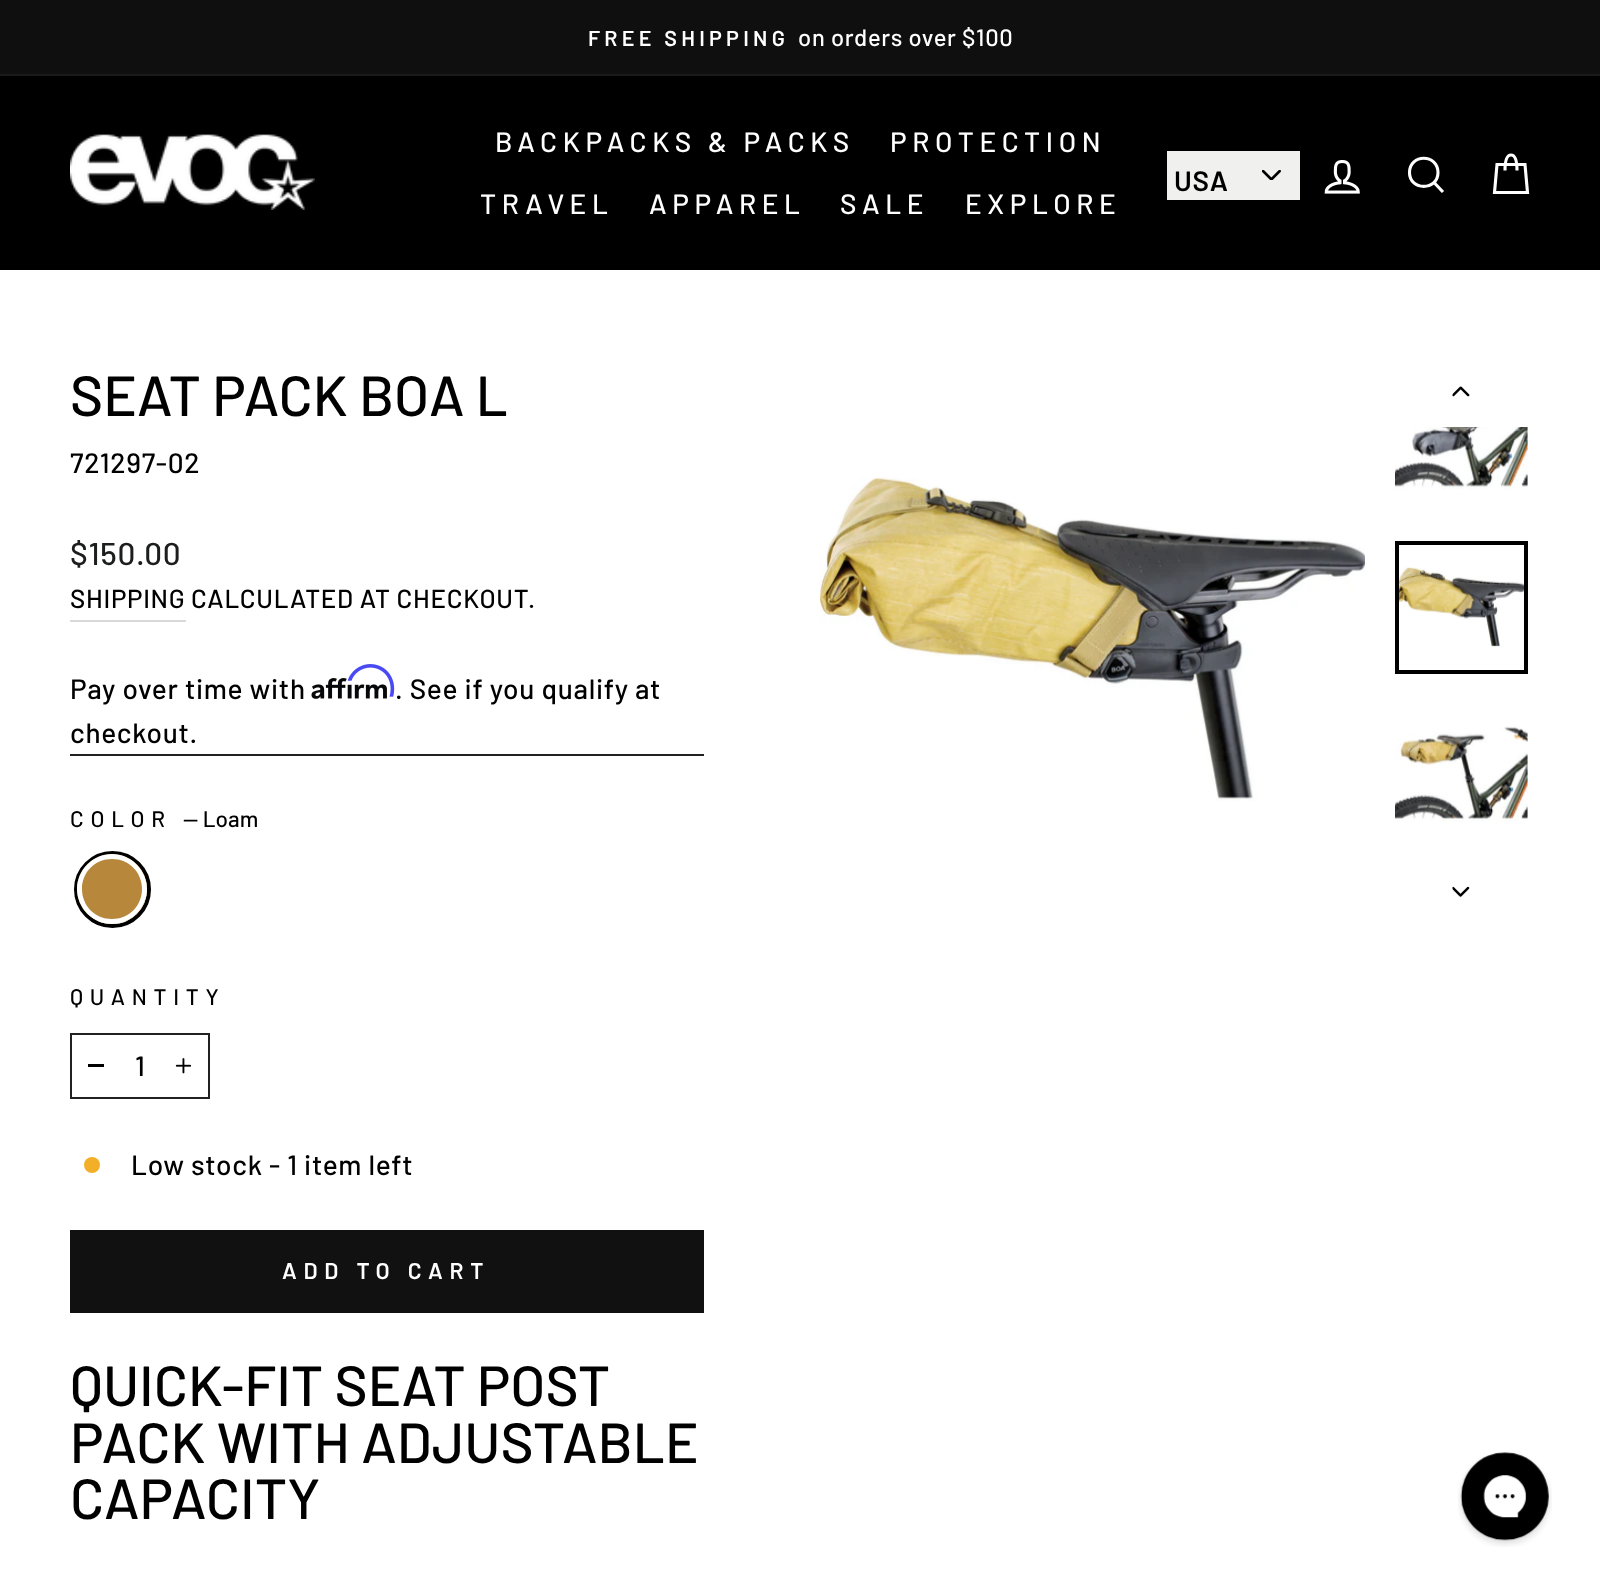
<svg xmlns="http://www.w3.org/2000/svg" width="1600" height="1587">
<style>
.a{font:600 21.5px Barlow;letter-spacing:4.25px;fill:#fff}
.b{font:500 23.75px Barlow;letter-spacing:0.7px;fill:#fff}
.c{font:500 28px Barlow;letter-spacing:5.6px;fill:#fff}
.d{font:600 28px Barlow;letter-spacing:0.7px;fill:#000}
.e{font:500 56.5px Barlow;fill:#000}
.f{font:500 28px Barlow;letter-spacing:0.7px;fill:#000}
.g{font:500 31.5px Barlow;letter-spacing:0.7px;fill:#1c1d1d}
.h{font:500 26px Barlow;letter-spacing:0.7px;fill:#000}
.i{font:500 22.5px Barlow;letter-spacing:6.75px;fill:#000}
.j{font:500 22.5px Barlow;fill:#000}
.k{font:600 22.75px Barlow;letter-spacing:6.75px;fill:#fff}
</style>
<rect width="100%" height="100%" fill="#fff"/>
<path fill="#0f0f0f" d="M0 0h1600v74H0z"/>
<path fill="#000" d="M0 76h1600v194H0z"/>
<path fill="#1a1a1a" d="M0 74h1600v2H0z"/>
<image href="1.png" x="70" y="134" width="245" height="76"/>
<path fill="#f0f0ef" d="M1167 151h133v49H1167z"/>
<image href="2.png" x="1262" y="170" width="19" height="10"/>
<image href="3.png" x="1324" y="159" width="36" height="35"/>
<path fill="none" stroke="#fff" stroke-width="3.1" d="M1438 172.5c0 18.5-28.5 18.5-28.5 0c0-19 28.5-19 28.5 0zm5 19.5l-9-9.5"/>
<path fill="none" stroke="#fff" stroke-width="3.1" d="M1505 170.5c0-12 2.5-15.5 6-15.5c3.5 0 6 3.5 6 15.5m-20-6h28l2.5 28h-33z"/>
<path fill="#d9d9d9" d="M70 620h116v2H70z"/>
<image href="5.png" x="311" y="678" width="76" height="21"/>
<image href="4.png" x="347" y="664" width="48" height="33"/>
<path fill="#212121" d="M70 754h634v2H70z"/>
<circle fill="none" stroke="#000" stroke-width="4" cx="112.5" cy="889.5" r="36.5"/>
<image href="6.png" x="77" y="854" width="70" height="70"/>
<path fill="#fff" fill-rule="evenodd" d="M112 854c-19 0-35 16-35 35c0 19 16 35 35 35c19 0 35-16 35-35c0-19-16-35-35-35zm0 5c-17 0-30 13-30 30c0 17 13 30 30 30c17 0 30-13 30-30c0-17-13-30-30-30z"/>
<path fill="none" stroke="#212121" stroke-width="2" d="M71 1034h138v64H71z"/>
<path fill="#000" d="M88 1064h16v3H88z"/>
<image href="7.png" x="175" y="1058" width="17" height="16"/>
<circle fill="#f4af29" cx="92" cy="1165" r="8"/>
<path fill="#111" d="M70 1230h634v83H70z"/>
<image href="8.png" x="820" y="477" width="545" height="324"/>
<image href="9.png" x="1452" y="386" width="18" height="11"/>
<image href="10.png" x="1395" y="427" width="133" height="63"/>
<image href="11.png" x="1399" y="567" width="125" height="80"/>
<path fill="none" stroke="#000" stroke-width="4" d="M1397 543h129v129H1397z"/>
<image href="12.png" x="1395" y="726" width="133" height="96"/>
<image href="13.png" x="1452" y="886" width="18" height="11"/>
<image href="14.png" x="1458" y="1452" width="94" height="95"/>
<text class="a" x="588" y="46">FREE SHIPPING</text>
<text class="b" x="798" y="46">on orders over $100</text>
<text class="c" x="495" y="152">BACKPACKS &amp; PACKS</text>
<text class="c" x="890" y="152">PROTECTION</text>
<text class="c" x="480" y="214">TRAVEL</text>
<text class="c" x="649" y="214">APPAREL</text>
<text class="c" x="840" y="214">SALE</text>
<text class="c" x="965" y="214">EXPLORE</text>
<text class="d" x="1174" y="191">USA</text>
<text class="e" x="70" y="416">SEAT PACK BOA L</text>
<text class="f" x="70" y="473">721297-02</text>
<text class="g" x="70" y="565">$150.00</text>
<text class="h" x="70" y="608">SHIPPING</text>
<text class="h" x="191" y="608">CALCULATED AT CHECKOUT.</text>
<text class="f" x="70" y="699">Pay over time with</text>
<text class="f" x="395" y="699">. See if you qualify at</text>
<text class="f" x="70" y="743">checkout.</text>
<text class="i" x="70" y="827">COLOR</text>
<text class="j" x="183" y="827">— Loam</text>
<text class="i" x="70" y="1005">QUANTITY</text>
<text class="f" x="135" y="1076">1</text>
<text class="f" x="131" y="1175">Low stock - 1 item left</text>
<text class="k" x="282" y="1279">ADD TO CART</text>
<text class="e" x="70" y="1406">QUICK-FIT SEAT POST</text>
<text class="e" x="70" y="1463">PACK WITH ADJUSTABLE</text>
<text class="e" x="70" y="1519">CAPACITY</text>
</svg>
